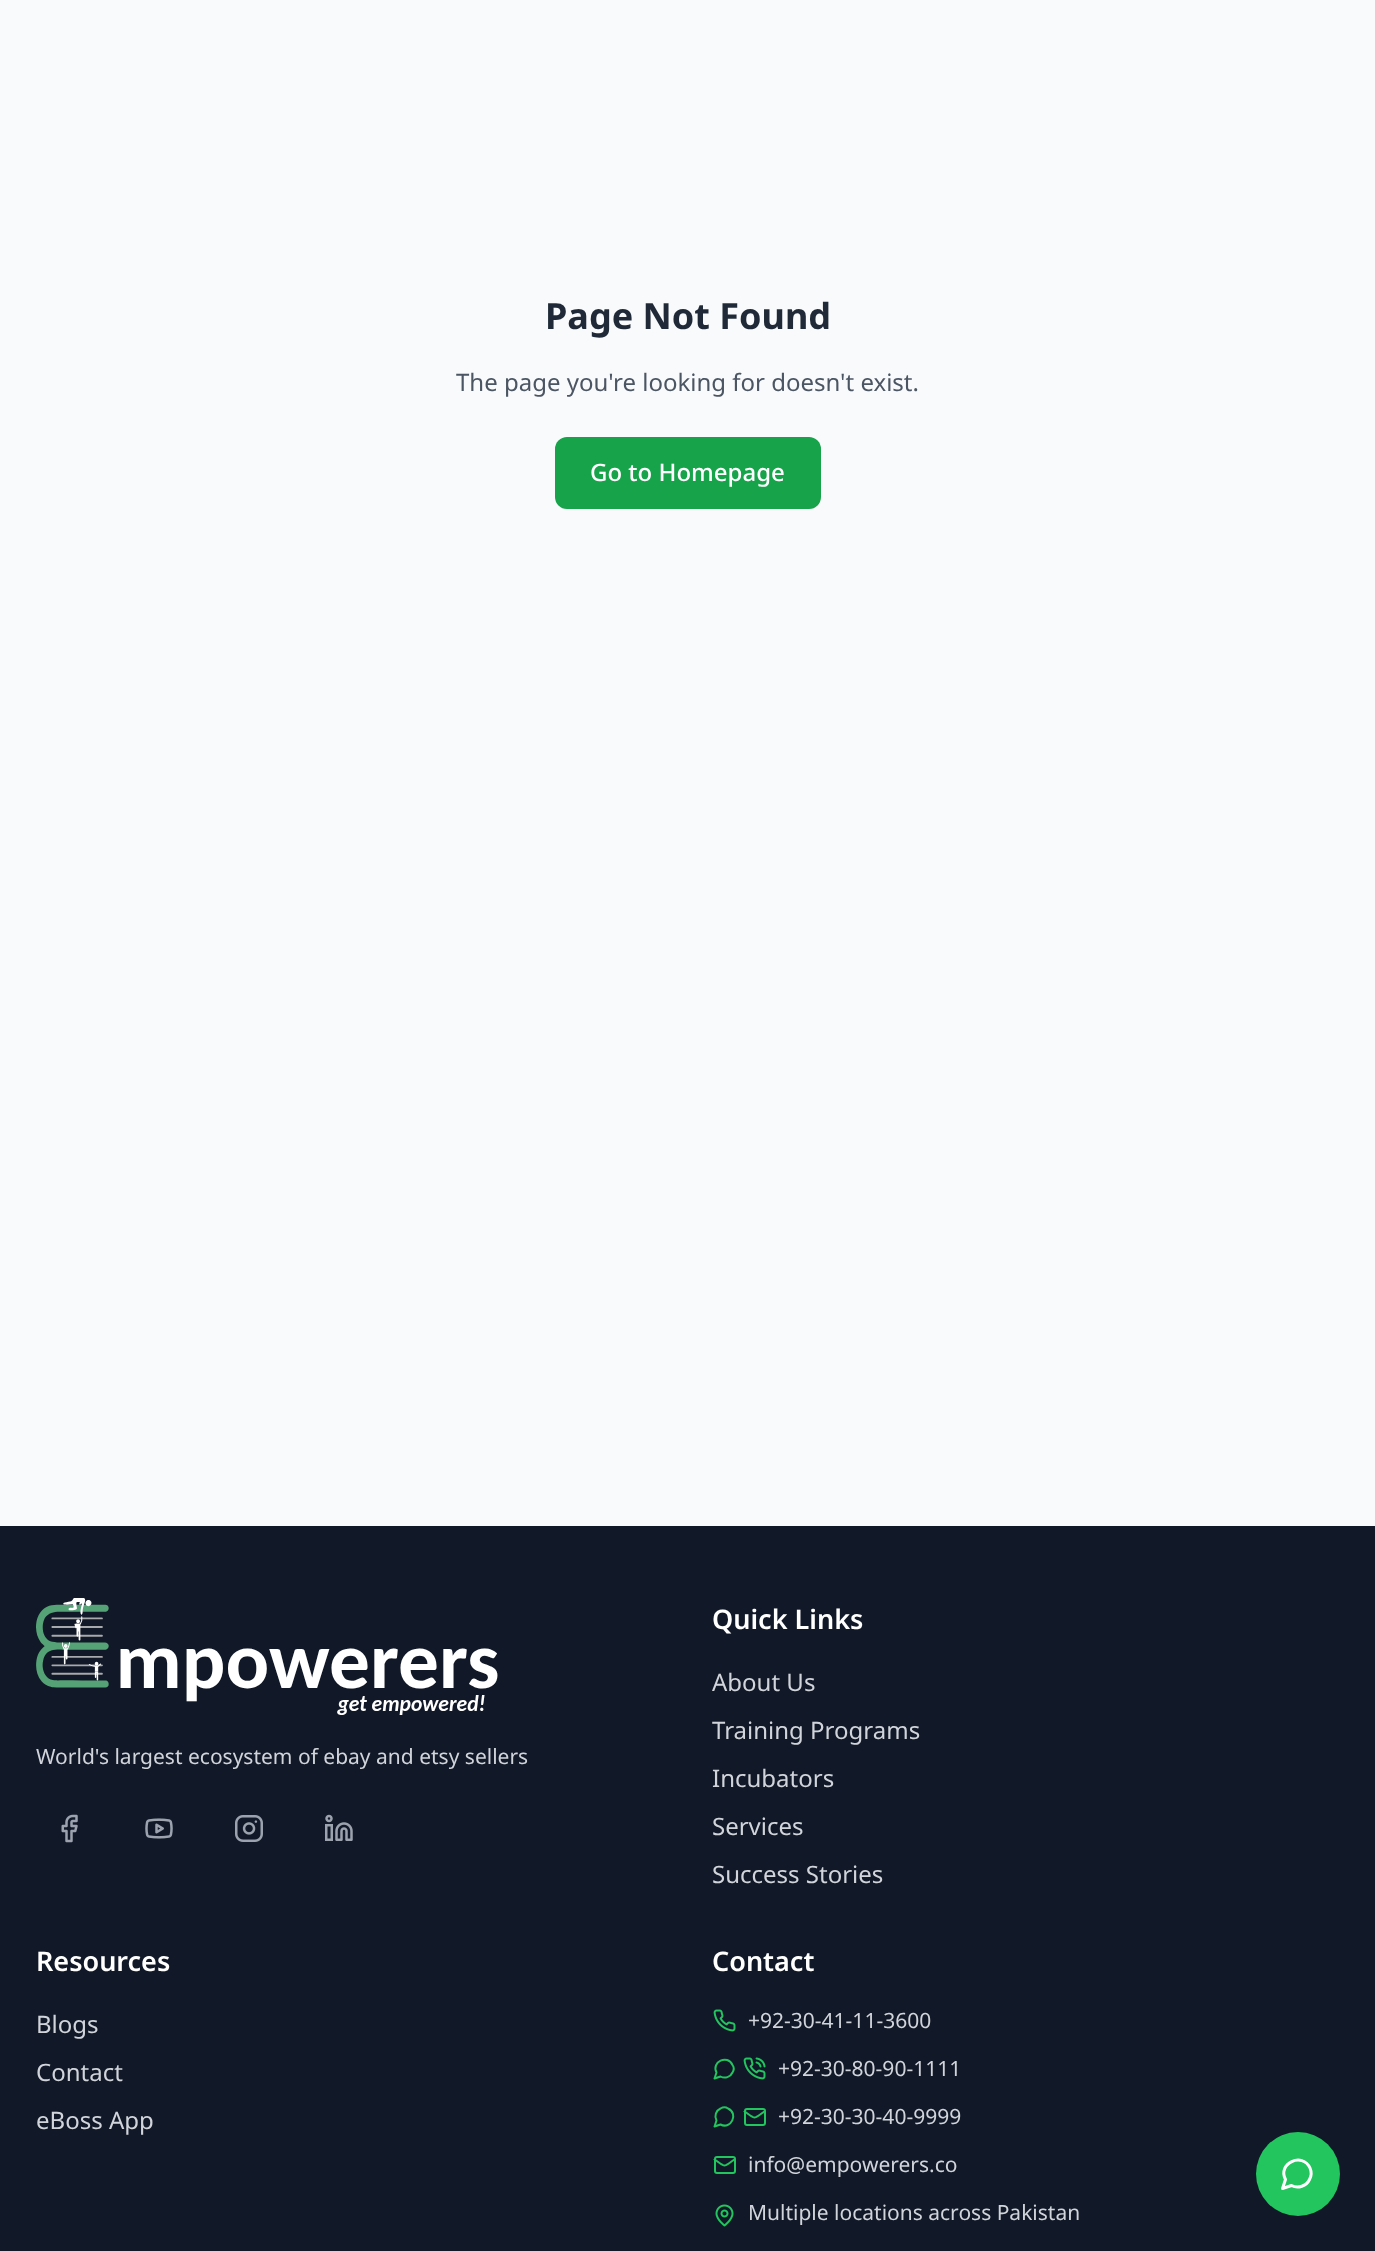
<svg xmlns="http://www.w3.org/2000/svg" width="1375" height="2251">
<style>
.a{font:bold 36px Noto Sans;fill:#1f2937}
.b{font:24px Noto Sans;fill:#4b5563}
.c{font:500 24px Noto Sans;fill:#fff}
.d{font:21px Noto Sans;fill:#d1d5db}
.e{font:600 27px Noto Sans;fill:#fff}
.f{font:24px Noto Sans;fill:#d1d5db}
</style>
<rect width="100%" height="100%" fill="#f9fafb"/>
<rect fill="#16a34a" x="555" y="437" width="266" height="72" rx="12"/>
<path fill="#111827" d="M0 1526h1375v725H0z"/>
<image href="1.png" x="36" y="1598" width="462" height="117"/>
<image href="2.png" x="61" y="1814" width="17" height="29"/>
<image href="3.png" x="145" y="1818" width="28" height="21"/>
<image href="4.png" x="235" y="1815" width="28" height="27"/>
<image href="5.png" x="325" y="1814" width="28" height="27"/>
<image href="6.png" x="713" y="2009" width="23" height="23"/>
<path fill="none" stroke="#22c55e" stroke-width="2" stroke-linecap="round" stroke-linejoin="round" d="M720.5 2076.5c4.5 2.5 10 .5 12-4c1.5-2.5 1.5-5.5 0-7.5c-5-11-21.5-3-16 7.5l-2 6z"/>
<image href="7.png" x="743" y="2057" width="23" height="23"/>
<path fill="none" stroke="#22c55e" stroke-width="2" stroke-linecap="round" stroke-linejoin="round" d="M720.5 2124.5c10.5 5.5 18.5-11 7.5-16c-2-1.5-5-1.5-7.5 0c-4.5 2-6.5 7.5-4 12l-2 6z"/>
<rect fill="none" stroke="#22c55e" stroke-width="2" x="745" y="2109" width="20" height="16" rx="2"/>
<path fill="none" stroke="#22c55e" stroke-width="2" stroke-linecap="round" stroke-linejoin="round" d="M764.5 2111.5c-12 8-8 8-20 0"/>
<rect fill="none" stroke="#22c55e" stroke-width="2" x="715" y="2157" width="20" height="16" rx="2"/>
<path fill="none" stroke="#22c55e" stroke-width="2" stroke-linecap="round" stroke-linejoin="round" d="M734.5 2159.5c-12 8-8 8-20 0"/>
<image href="8.png" x="715" y="2204" width="19" height="23"/>
<circle fill="#22c55e" cx="1298" cy="2174" r="42"/>
<path fill="none" stroke="#fff" stroke-width="3" stroke-linecap="round" stroke-linejoin="round" d="M1291.5 2185.5c6.5 3.5 15 .5 18-6c2-3.5 2-8 .5-11.5c-7.5-16.5-33-4.5-24.5 11.5l-3 9z"/>
<text class="a" x="545" y="329">Page Not Found</text>
<text class="b" x="456" y="391">The page you're looking for doesn't exist.</text>
<text class="c" x="590" y="481">Go to Homepage</text>
<text class="d" x="36" y="1764">World's largest ecosystem of ebay and etsy sellers</text>
<text class="e" x="712" y="1629">Quick Links</text>
<text class="f" x="712" y="1691">About Us</text>
<text class="f" x="712" y="1739">Training Programs</text>
<text class="f" x="712" y="1787">Incubators</text>
<text class="f" x="712" y="1835">Services</text>
<text class="f" x="712" y="1883">Success Stories</text>
<text class="e" x="36" y="1971">Resources</text>
<text class="f" x="36" y="2033">Blogs</text>
<text class="f" x="36" y="2081">Contact</text>
<text class="f" x="36" y="2129">eBoss App</text>
<text class="e" x="712" y="1971">Contact</text>
<text class="d" x="748" y="2028">+92-30-41-11-3600</text>
<text class="d" x="778" y="2076">+92-30-80-90-1111</text>
<text class="d" x="778" y="2124">+92-30-30-40-9999</text>
<text class="d" x="748" y="2172">info@empowerers.co</text>
<text class="d" x="748" y="2220">Multiple locations across Pakistan</text>
</svg>
